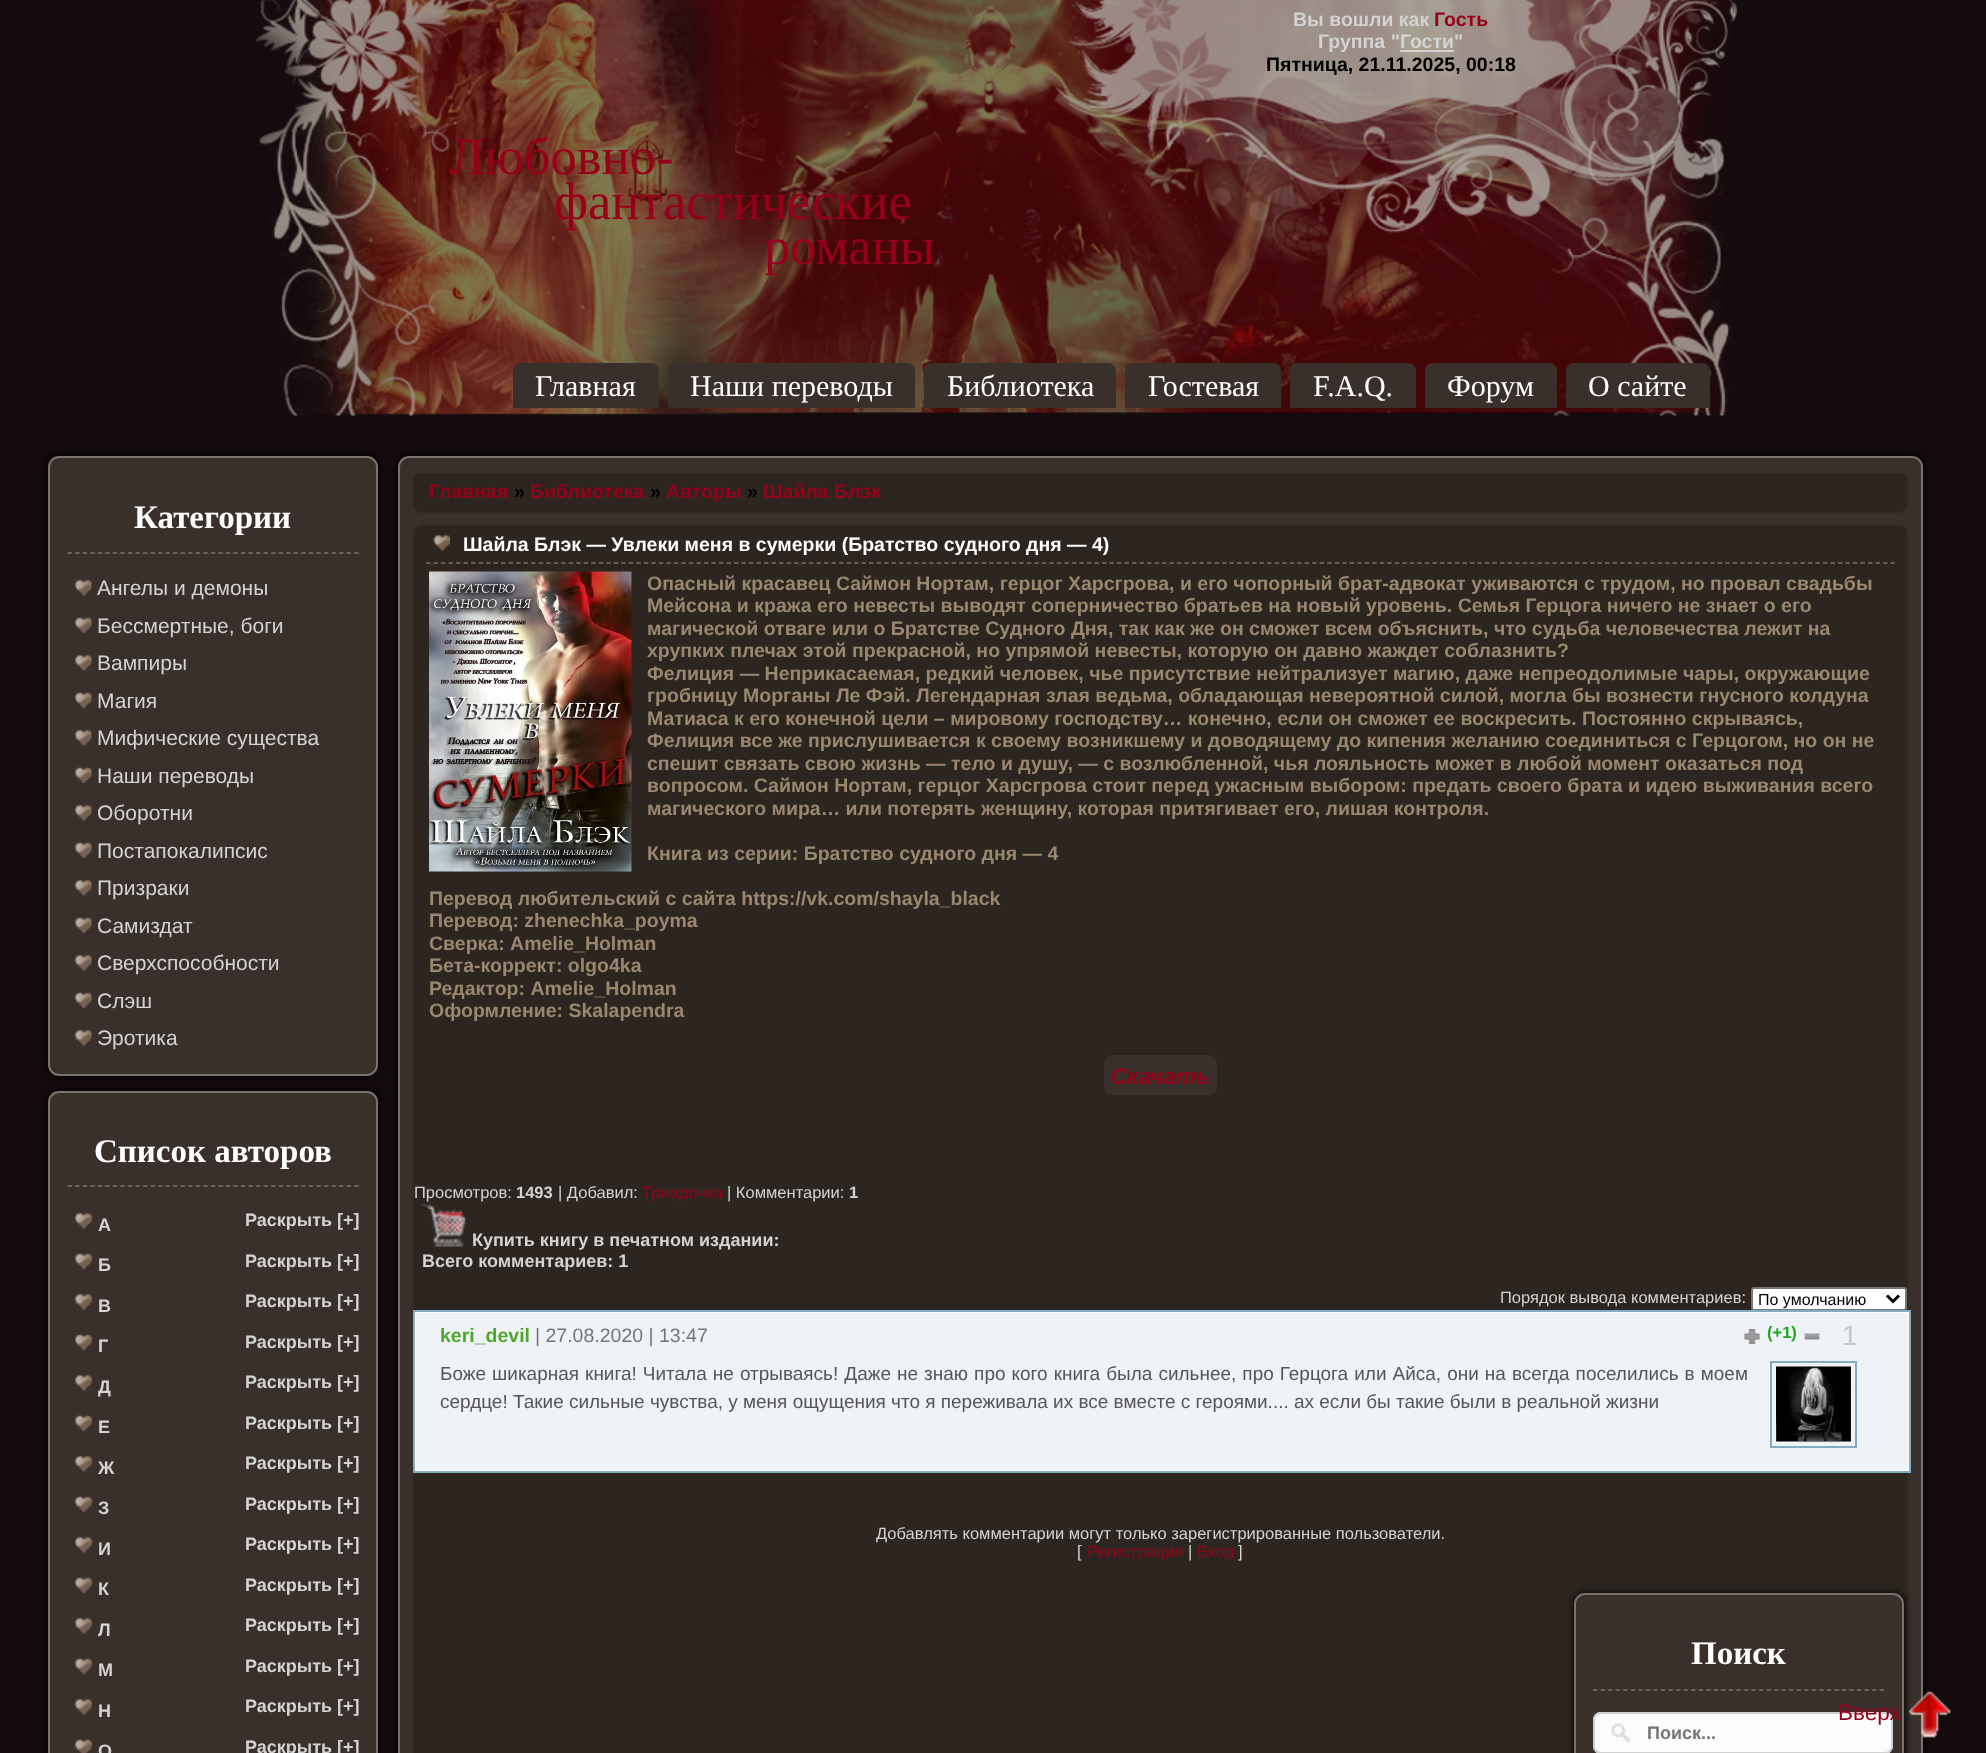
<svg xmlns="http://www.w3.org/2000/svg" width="1986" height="1753">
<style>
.a{font:bold 19.5px Liberation Sans;fill:#d3d3d3}
.b{font:bold 19.5px Liberation Sans;fill:#960018}
.c{font:bold 19.5px Liberation Sans;fill:#000}
.d{font:52.5px Liberation Serif;fill:#960018}
.e{font:30px Liberation Serif;fill:#fff}
.f{font:bold 33px Liberation Serif;fill:#fff}
.g{font:21px Liberation Sans;fill:#d3d3d3}
.h{font:bold 18px Liberation Sans;fill:#d3d3d3}
.i{font:bold 19.5px Liberation Sans;fill:#fff}
.j{font:bold 19.5px Liberation Sans;fill:#99886f}
.k{font:italic bold 22.5px Liberation Sans;fill:#960018}
.l{font:16.5px Liberation Sans;fill:#d3d3d3}
.m{font:bold 16.5px Liberation Sans;fill:#d3d3d3}
.n{font:16.5px Liberation Sans;fill:#960018}
.o{font:16px Liberation Sans;fill:#000}
.p{font:bold 19.5px Liberation Sans;fill:#4ea62c}
.q{font:19.5px Liberation Sans;fill:#757575}
.r{font:bold 16.5px Liberation Sans;fill:#1da71a}
.s{font:28px Liberation Sans;fill:#c7c7c7}
.t{font:18.98px Liberation Sans;fill:#555}
.u{font:bold 18px Liberation Sans;fill:#757575}
.v{font:22.5px Liberation Sans;fill:#960018}
</style>
<rect width="100%" height="100%" fill="#140b0e"/>
<image href="1.png" x="253" y="0" width="1485" height="416"/>
<path fill="#d3d3d3" d="M1400 50h54v2H1400z"/>
<path fill="#39302b" d="M521 363h130c4.5 0 8 3.5 8 8v37h-146v-37c0-4.5 3.5-8 8-8z"/>
<path fill="#39302b" d="M676 363h231c4.5 0 8 3.5 8 8v37h-247v-37c0-4.5 3.5-8 8-8z"/>
<path fill="#39302b" d="M932 363h176c4.5 0 8 3.5 8 8v37h-192v-37c0-4.5 3.5-8 8-8z"/>
<path fill="#39302b" d="M1133 363h140c4.5 0 8 3.5 8 8v37h-156v-37c0-4.5 3.5-8 8-8z"/>
<path fill="#39302b" d="M1298 363h110c4.5 0 8 3.5 8 8v37h-126v-37c0-4.5 3.5-8 8-8z"/>
<path fill="#39302b" d="M1433 363h116c4.5 0 8 3.5 8 8v37h-132v-37c0-4.5 3.5-8 8-8z"/>
<path fill="#39302b" d="M1574 363h128c4.5 0 8 3.5 8 8v37h-144v-37c0-4.5 3.5-8 8-8z"/>
<rect fill="#000" filter="blur(4px)" x="48" y="456" width="330" height="620" rx="11"/>
<rect fill="#39302b" stroke="#78736d" stroke-width="2" x="49" y="457" width="328" height="618" rx="10"/>
<path fill="none" stroke="#78736d" stroke-width="1.5" stroke-dasharray="4.5 3.04" d="M67.5 553h291"/>
<image href="2.png" x="75" y="579" width="17" height="17"/>
<image href="3.png" x="75" y="616" width="17" height="17"/>
<image href="2.png" x="75" y="654" width="17" height="17"/>
<image href="3.png" x="75" y="691" width="17" height="17"/>
<image href="2.png" x="75" y="729" width="17" height="17"/>
<image href="3.png" x="75" y="766" width="17" height="17"/>
<image href="2.png" x="75" y="804" width="17" height="17"/>
<image href="3.png" x="75" y="841" width="17" height="17"/>
<image href="2.png" x="75" y="879" width="17" height="17"/>
<image href="3.png" x="75" y="916" width="17" height="17"/>
<image href="2.png" x="75" y="954" width="17" height="17"/>
<image href="3.png" x="75" y="991" width="17" height="17"/>
<image href="2.png" x="75" y="1029" width="17" height="17"/>
<rect fill="#000" filter="blur(4px)" x="48" y="1091" width="330" height="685" rx="11"/>
<rect fill="#39302b" stroke="#78736d" stroke-width="2" x="49" y="1092" width="328" height="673" rx="10"/>
<path fill="none" stroke="#78736d" stroke-width="1.5" stroke-dasharray="4.5 3.04" d="M67.5 1186h291"/>
<image href="4.png" x="75" y="1212" width="18" height="18"/>
<image href="5.png" x="75" y="1252" width="18" height="18"/>
<image href="4.png" x="75" y="1293" width="18" height="18"/>
<image href="5.png" x="75" y="1333" width="18" height="18"/>
<image href="4.png" x="75" y="1374" width="18" height="18"/>
<image href="5.png" x="75" y="1414" width="18" height="18"/>
<image href="4.png" x="75" y="1455" width="18" height="18"/>
<image href="5.png" x="75" y="1495" width="18" height="18"/>
<image href="4.png" x="75" y="1536" width="18" height="18"/>
<image href="5.png" x="75" y="1576" width="18" height="18"/>
<image href="4.png" x="75" y="1617" width="18" height="18"/>
<image href="5.png" x="75" y="1657" width="18" height="18"/>
<image href="4.png" x="75" y="1698" width="18" height="18"/>
<image href="6.png" x="75" y="1738" width="18" height="15"/>
<rect fill="#000" filter="blur(4px)" x="398" y="456" width="1525" height="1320" rx="11"/>
<rect fill="#39302b" stroke="#78736d" stroke-width="2" x="399" y="457" width="1523" height="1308" rx="10"/>
<rect fill="#0000004d" filter="blur(1.5px)" x="414" y="474" width="1493" height="38" rx="8"/>
<rect fill="#2d2620" x="414" y="473" width="1493" height="37" rx="8"/>
<rect fill="#0000004d" filter="blur(1.5px)" x="414" y="527" width="1493" height="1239" rx="8"/>
<rect fill="#2d2620" x="414" y="525" width="1493" height="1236" rx="8"/>
<path fill="none" stroke="#78736d" stroke-width="1.5" stroke-dasharray="4.5 3.01" d="M426 563h1468.5"/>
<image href="7.png" x="433" y="534" width="17" height="17"/>
<image href="8.png" x="429" y="571" width="203" height="301"/>
<rect fill="#39302b" x="1104" y="1055" width="113" height="40" rx="8"/>
<image href="9.png" x="421" y="1203" width="45" height="44"/>
<rect fill="#fff" stroke="#767676" stroke-width="2" x="1752" y="1288" width="154" height="22" rx="2"/>
<path fill="none" stroke="#000" stroke-width="3" d="M1887 1295.5l6 6l6-6"/>
<path fill="#eff3f7" stroke="#fff" stroke-width="2" d="M415 1312h1494v159H415z"/>
<image href="10.png" x="1744" y="1329" width="16" height="15"/>
<image href="11.png" x="1804" y="1333" width="16" height="7"/>
<path fill="none" stroke="#84abc2" stroke-width="2" d="M414 1311h1496v161H414z"/>
<path fill="none" stroke="#84abc2" stroke-width="2" d="M1771 1362h85v85H1771z"/>
<image href="12.png" x="1776" y="1366" width="75" height="76"/>
<rect fill="#000" filter="blur(4px)" x="1574" y="1593" width="330" height="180" rx="11"/>
<rect fill="#39302b" stroke="#78736d" stroke-width="2" x="1575" y="1594" width="328" height="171" rx="10"/>
<path fill="none" stroke="#78736d" stroke-width="1.5" stroke-dasharray="4.5 3.04" d="M1593 1690h291"/>
<rect fill="#fcfcfc" x="1593" y="1712" width="300" height="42" rx="8"/>
<image href="13.png" x="1611" y="1723" width="20" height="20"/>
<rect fill="none" stroke="#d1d1d1" stroke-width="2" x="1594" y="1713" width="298" height="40" rx="7"/>
<image href="14.png" x="1908" y="1691" width="43" height="47"/>
<text class="a" x="1293" y="26">Вы вошли как</text>
<text class="b" x="1434" y="26">Гость</text>
<text class="a" x="1318" y="48">Группа "Гости"</text>
<text class="c" x="1266" y="71">Пятница, 21.11.2025, 00:18</text>
<text class="d" x="449" y="174">Любовно-</text>
<text class="d" x="554" y="219">фантастические</text>
<text class="d" x="764" y="264">романы</text>
<text class="e" x="535" y="396">Главная</text>
<text class="e" x="690" y="396">Наши переводы</text>
<text class="e" x="947" y="396">Библиотека</text>
<text class="e" x="1148" y="396">Гостевая</text>
<text class="e" x="1313" y="396">F.A.Q.</text>
<text class="e" x="1447" y="396">Форум</text>
<text class="e" x="1588" y="396">О сайте</text>
<text class="f" x="134" y="528">Категории</text>
<text class="g" x="97" y="595">Ангелы и демоны</text>
<text class="g" x="97" y="633">Бессмертные, боги</text>
<text class="g" x="97" y="670">Вампиры</text>
<text class="g" x="97" y="708">Магия</text>
<text class="g" x="97" y="745">Мифические существа</text>
<text class="g" x="97" y="783">Наши переводы</text>
<text class="g" x="97" y="820">Оборотни</text>
<text class="g" x="97" y="858">Постапокалипсис</text>
<text class="g" x="97" y="895">Призраки</text>
<text class="g" x="97" y="933">Самиздат</text>
<text class="g" x="97" y="970">Сверхспособности</text>
<text class="g" x="97" y="1008">Слэш</text>
<text class="g" x="97" y="1045">Эротика</text>
<text class="f" x="94" y="1162">Список авторов</text>
<text class="h" x="98" y="1231">А</text>
<text class="h" x="245" y="1226">Раскрыть [+]</text>
<text class="h" x="98" y="1271">Б</text>
<text class="h" x="245" y="1267">Раскрыть [+]</text>
<text class="h" x="98" y="1312">В</text>
<text class="h" x="245" y="1307">Раскрыть [+]</text>
<text class="h" x="98" y="1352">Г</text>
<text class="h" x="245" y="1348">Раскрыть [+]</text>
<text class="h" x="98" y="1393">Д</text>
<text class="h" x="245" y="1388">Раскрыть [+]</text>
<text class="h" x="98" y="1433">Е</text>
<text class="h" x="245" y="1429">Раскрыть [+]</text>
<text class="h" x="98" y="1474">Ж</text>
<text class="h" x="245" y="1469">Раскрыть [+]</text>
<text class="h" x="98" y="1514">З</text>
<text class="h" x="245" y="1510">Раскрыть [+]</text>
<text class="h" x="98" y="1555">И</text>
<text class="h" x="245" y="1550">Раскрыть [+]</text>
<text class="h" x="98" y="1595">К</text>
<text class="h" x="245" y="1591">Раскрыть [+]</text>
<text class="h" x="98" y="1636">Л</text>
<text class="h" x="245" y="1631">Раскрыть [+]</text>
<text class="h" x="98" y="1676">М</text>
<text class="h" x="245" y="1672">Раскрыть [+]</text>
<text class="h" x="98" y="1717">Н</text>
<text class="h" x="245" y="1712">Раскрыть [+]</text>
<text class="h" x="98" y="1757">О</text>
<text class="h" x="245" y="1753">Раскрыть [+]</text>
<text class="b" x="429" y="498">Главная</text>
<text class="c" x="514" y="498">»</text>
<text class="b" x="530" y="498">Библиотека</text>
<text class="c" x="650" y="498">»</text>
<text class="b" x="666" y="498">Авторы</text>
<text class="c" x="747" y="498">»</text>
<text class="b" x="763" y="498">Шайла Блэк</text>
<text class="i" x="463" y="551">Шайла Блэк — Увлеки меня в сумерки (Братство судного дня — 4)</text>
<text class="j" x="647" y="590">Опасный красавец Саймон Нортам, герцог Харсгрова, и его чопорный брат-адвокат уживаются с трудом, но провал свадьбы</text>
<text class="j" x="647" y="612">Мейсона и кража его невесты выводят соперничество братьев на новый уровень. Семья Герцога ничего не знает о его</text>
<text class="j" x="647" y="635">магической отваге или о Братстве Судного Дня, так как же он сможет всем объяснить, что судьба человечества лежит на</text>
<text class="j" x="647" y="657">хрупких плечах этой прекрасной, но упрямой невесты, которую он давно жаждет соблазнить?</text>
<text class="j" x="647" y="680">Фелиция — Неприкасаемая, редкий человек, чье присутствие нейтрализует магию, даже непреодолимые чары, окружающие</text>
<text class="j" x="647" y="702">гробницу Морганы Ле Фэй. Легендарная злая ведьма, обладающая невероятной силой, могла бы вознести гнусного колдуна</text>
<text class="j" x="647" y="725">Матиаса к его конечной цели – мировому господству… конечно, если он сможет ее воскресить. Постоянно скрываясь,</text>
<text class="j" x="647" y="747">Фелиция все же прислушивается к своему возникшему и доводящему до кипения желанию соединиться с Герцогом, но он не</text>
<text class="j" x="647" y="770">спешит связать свою жизнь — тело и душу, — с возлюбленной, чья лояльность может в любой момент оказаться под</text>
<text class="j" x="647" y="792">вопросом. Саймон Нортам, герцог Харсгрова стоит перед ужасным выбором: предать своего брата и идею выживания всего</text>
<text class="j" x="647" y="815">магического мира… или потерять женщину, которая притягивает его, лишая контроля.</text>
<text class="j" x="647" y="860">Книга из серии: Братство судного дня — 4</text>
<text class="j" x="429" y="905">Перевод любительский с сайта https://vk.com/shayla_black</text>
<text class="j" x="429" y="927">Перевод: zhenechka_poyma</text>
<text class="j" x="429" y="950">Сверка: Amelie_Holman</text>
<text class="j" x="429" y="972">Бета-коррект: olgo4ka</text>
<text class="j" x="429" y="995">Редактор: Amelie_Holman</text>
<text class="j" x="429" y="1017">Оформление: Skalapendra</text>
<text class="k" x="1111" y="1084">Скачать</text>
<text class="l" x="414" y="1198">Просмотров:</text>
<text class="m" x="516" y="1198">1493</text>
<text class="l" x="558" y="1198">| Добавил:</text>
<text class="n" x="642" y="1198">Триадочка</text>
<text class="l" x="727" y="1198">| Комментарии:</text>
<text class="m" x="849" y="1198">1</text>
<text class="h" x="472" y="1246">Купить книгу в печатном издании:</text>
<text class="h" x="422" y="1267">Всего комментариев: 1</text>
<text class="l" x="1500" y="1303">Порядок вывода комментариев:</text>
<text class="o" x="1758" y="1305">По умолчанию</text>
<text class="p" x="440" y="1342">keri_devil</text>
<text class="q" x="535" y="1342">| 27.08.2020 | 13:47</text>
<text class="r" x="1767" y="1338">(+1)</text>
<text class="s" x="1842" y="1345">1</text>
<text class="t" x="440" y="1380" word-spacing="0.8">Боже шикарная книга! Читала не отрываясь! Даже не знаю про кого книга была сильнее, про Герцога или Айса, они на всегда поселились в моем</text>
<text class="t" x="440" y="1408">сердце! Такие сильные чувства, у меня ощущения что я переживала их все вместе с героями.... ах если бы такие были в реальной жизни</text>
<text class="l" x="876" y="1539">Добавлять комментарии могут только зарегистрированные пользователи.</text>
<text class="l" x="1077" y="1557">[</text>
<text class="n" x="1087" y="1557">Регистрация</text>
<text class="l" x="1188" y="1557">|</text>
<text class="n" x="1197" y="1557">Вход</text>
<text class="l" x="1238" y="1557">]</text>
<text class="f" x="1691" y="1664">Поиск</text>
<text class="u" x="1647" y="1739">Поиск...</text>
<text class="v" x="1838" y="1720">Вверх</text>
</svg>
